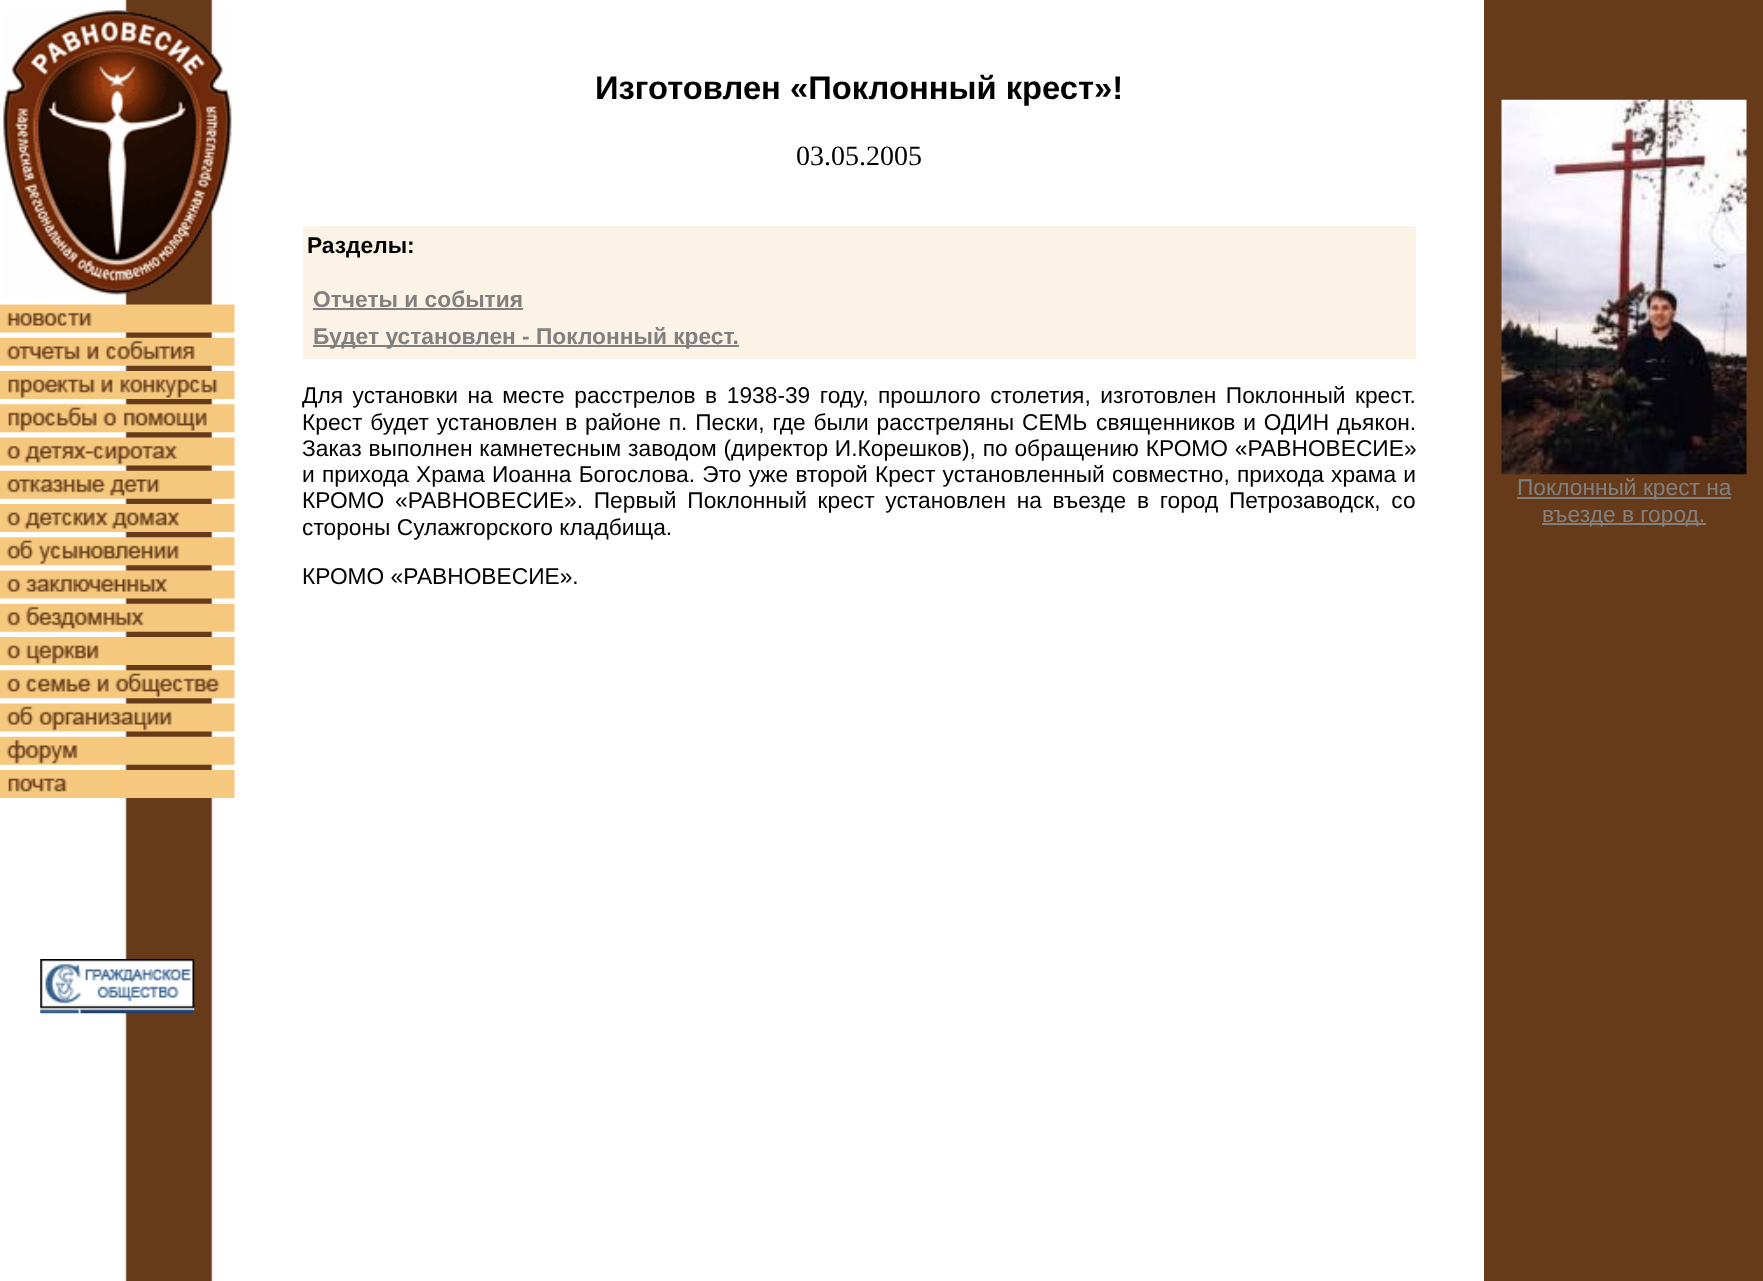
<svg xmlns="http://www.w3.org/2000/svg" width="1763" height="1281">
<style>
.a{font:bold 32.75px Liberation Sans;fill:#000}
.b{font:28px Liberation Serif;fill:#000}
.c{font:bold 22.75px Liberation Sans;fill:#000}
.d{font:bold 22.75px Liberation Sans;fill:#808080}
.e{font:22.75px Liberation Sans;fill:#000}
.f{font:22.75px Liberation Sans;fill:#808080}
</style>
<rect width="100%" height="100%" fill="#fff"/>
<image href="1.png" x="125" y="0" width="88" height="1281"/>
<image href="2.png" x="3" y="10" width="229" height="286"/>
<image href="3.png" x="0" y="304" width="235" height="29"/>
<image href="4.png" x="0" y="337" width="235" height="29"/>
<image href="5.png" x="0" y="371" width="235" height="28"/>
<image href="6.png" x="0" y="404" width="235" height="29"/>
<image href="7.png" x="0" y="437" width="235" height="29"/>
<image href="8.png" x="0" y="470" width="235" height="29"/>
<image href="9.png" x="0" y="504" width="235" height="28"/>
<image href="10.png" x="0" y="537" width="235" height="29"/>
<image href="11.png" x="0" y="570" width="235" height="29"/>
<image href="12.png" x="0" y="603" width="235" height="29"/>
<image href="13.png" x="0" y="637" width="235" height="28"/>
<image href="14.png" x="0" y="670" width="235" height="29"/>
<image href="15.png" x="0" y="703" width="235" height="29"/>
<image href="16.png" x="0" y="736" width="235" height="29"/>
<image href="17.png" x="0" y="770" width="235" height="28"/>
<image href="18.png" x="40" y="959" width="155" height="55"/>
<path fill="#fbf3e5" d="M303 226h1113v133H303z"/>
<path fill="#808080" d="M313 308h210v2H313z"/>
<path fill="#808080" d="M313 345h426v2H313z"/>
<path fill="#673b1a" d="M1484 0h279v1281H1484z"/>
<image href="19.png" x="1501" y="99" width="246" height="376"/>
<path fill="#808080" d="M1517 497h214v2H1517z"/>
<path fill="#808080" d="M1542 523h164v2H1542z"/>
<text class="a" x="595" y="99">Изготовлен «Поклонный крест»!</text>
<text class="b" x="796" y="165">03.05.2005</text>
<text class="c" x="307" y="253">Разделы:</text>
<text class="d" x="313" y="307">Отчеты и события</text>
<text class="d" x="313" y="344">Будет установлен - Поклонный крест.</text>
<text class="e" x="302" y="403" word-spacing="3.25">Для установки на месте расстрелов в 1938-39 году, прошлого столетия, изготовлен Поклонный крест.</text>
<text class="e" x="302" y="430" word-spacing="1.5">Крест будет установлен в районе п. Пески, где были расстреляны СЕМЬ</text>
<text class="e" x="1096" y="430" word-spacing="1.5">священников и ОДИН дьякон.</text>
<text class="e" x="302" y="456" word-spacing="0.5">Заказ выполнен камнетесным заводом (директор И.Корешков), по обращению КРОМО «РАВНОВЕСИЕ»</text>
<text class="e" x="302" y="482" word-spacing="0.9">и прихода Храма Иоанна Богослова. Это уже второй Крест установленный совместно, прихода храма и</text>
<text class="e" x="302" y="508" word-spacing="4.4">КРОМО «РАВНОВЕСИЕ». Первый Поклонный крест установлен на въезде в город Петрозаводск, со</text>
<text class="e" x="302" y="535">стороны Сулажгорского кладбища.</text>
<text class="e" x="302" y="584">КРОМО «РАВНОВЕСИЕ».</text>
<text class="f" x="1517" y="495">Поклонный крест на</text>
<text class="f" x="1542" y="522">въезде в город.</text>
</svg>
